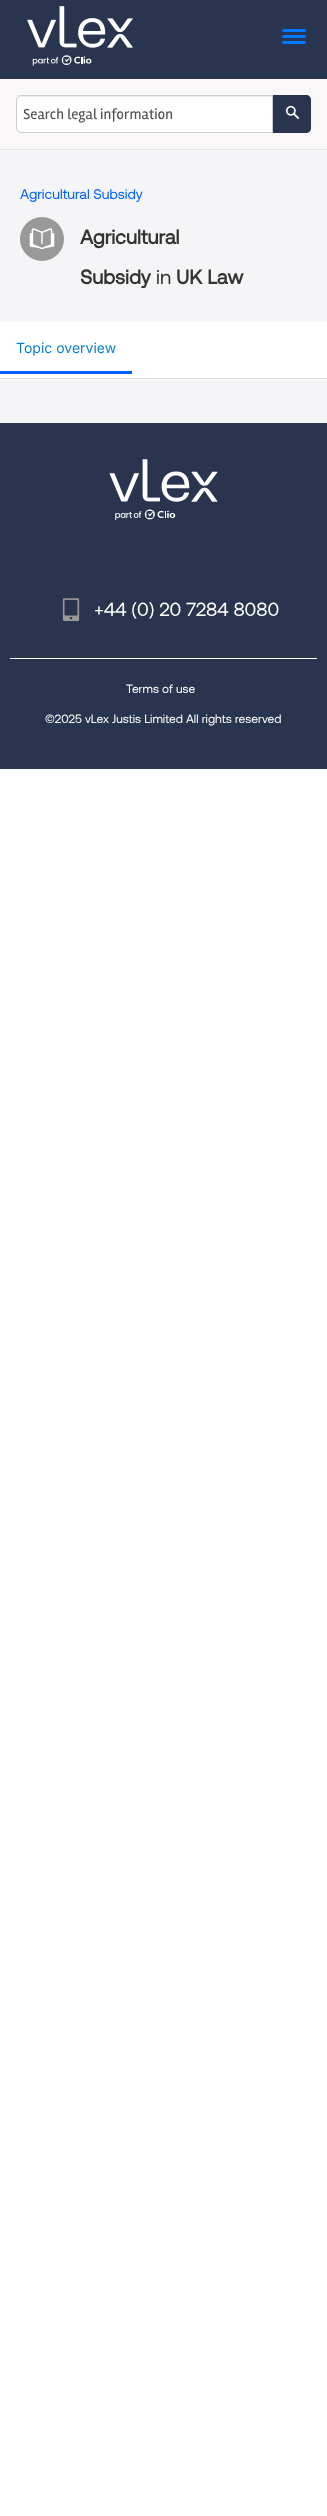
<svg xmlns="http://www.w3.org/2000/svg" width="327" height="2516">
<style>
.a{font:15px Rambla;fill:#505050}
.b{font:14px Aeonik;fill:#0161ff}
.c{font:bold 20px Aeonik;fill:#333}
.d{font:20px Aeonik;fill:#333}
.e{font:14px Inter;fill:#0882cf}
.f{font:19px Aeonik;fill:#fff}
.g{font:12px Aeonik;fill:#fff}
</style>
<rect width="100%" height="100%" fill="#fff"/>
<path fill="#29354e" d="M0 0h327v79H0z"/>
<image href="1.png" x="27" y="6" width="106" height="60"/>
<rect fill="#07f" x="282" y="35" width="24" height="3" rx="1.5"/>
<rect fill="#07f" x="282" y="29" width="24" height="3" rx="1.5"/>
<rect fill="#07f" x="282" y="41" width="24" height="3" rx="1.5"/>
<path fill="#f9f7f7" d="M0 79h327v70H0z"/>
<path fill="#e1e1e1" d="M0 149h327v1H0z"/>
<path fill="#fff" d="M21 95h252v38h-252c-3 0-5-2-5-5v-28c0-3 2-5 5-5z"/>
<path fill="#ececec" d="M21 97h251v-1h-251c-2 0-4 2-4 4v1c0-2 2-4 4-4z"/>
<path fill="none" stroke="#ccc" d="M21 95.5h251.5v37h-251.5c-2.5 0-4.5-2-4.5-4.5v-28c0-2.5 2-4.5 4.5-4.5z"/>
<path fill="#29354e" d="M273 95h33c3 0 5 2 5 5v28c0 3-2 5-5 5h-33z"/>
<image href="2.png" x="285" y="105" width="14" height="14"/>
<path fill="#f5f5f7" d="M0 150h327v273H0z"/>
<circle fill="#999" cx="42" cy="239" r="22"/>
<image href="3.png" x="29" y="228" width="26" height="22"/>
<path fill="#fff" d="M0 322h327v56H0z"/>
<path fill="#ddd" d="M0 378h327v1H0z"/>
<path fill="#0062fe" d="M0 371h132v3H0z"/>
<path fill="#29354e" d="M0 423h327v346H0z"/>
<path fill="#fff" d="M10 658h307v1H10z"/>
<image href="4.png" x="109" y="459" width="109" height="62"/>
<image href="5.png" x="62" y="598" width="18" height="23"/>
<text class="a" x="23" y="119">Search legal information</text>
<text class="b" x="20" y="199">Agricultural Subsidy</text>
<text class="c" x="80" y="244">Agricultural</text>
<text class="c" x="80" y="284">Subsidy</text>
<text class="d" x="156" y="284">in</text>
<text class="c" x="176" y="284">UK Law</text>
<text class="e" x="16" y="353">Topic overview</text>
<text class="f" x="94" y="616">+44 (0) 20 7284 8080</text>
<text class="g" x="126" y="693">Terms of use</text>
<text class="g" x="45" y="723">©2025 vLex Justis Limited All rights reserved</text>
</svg>
